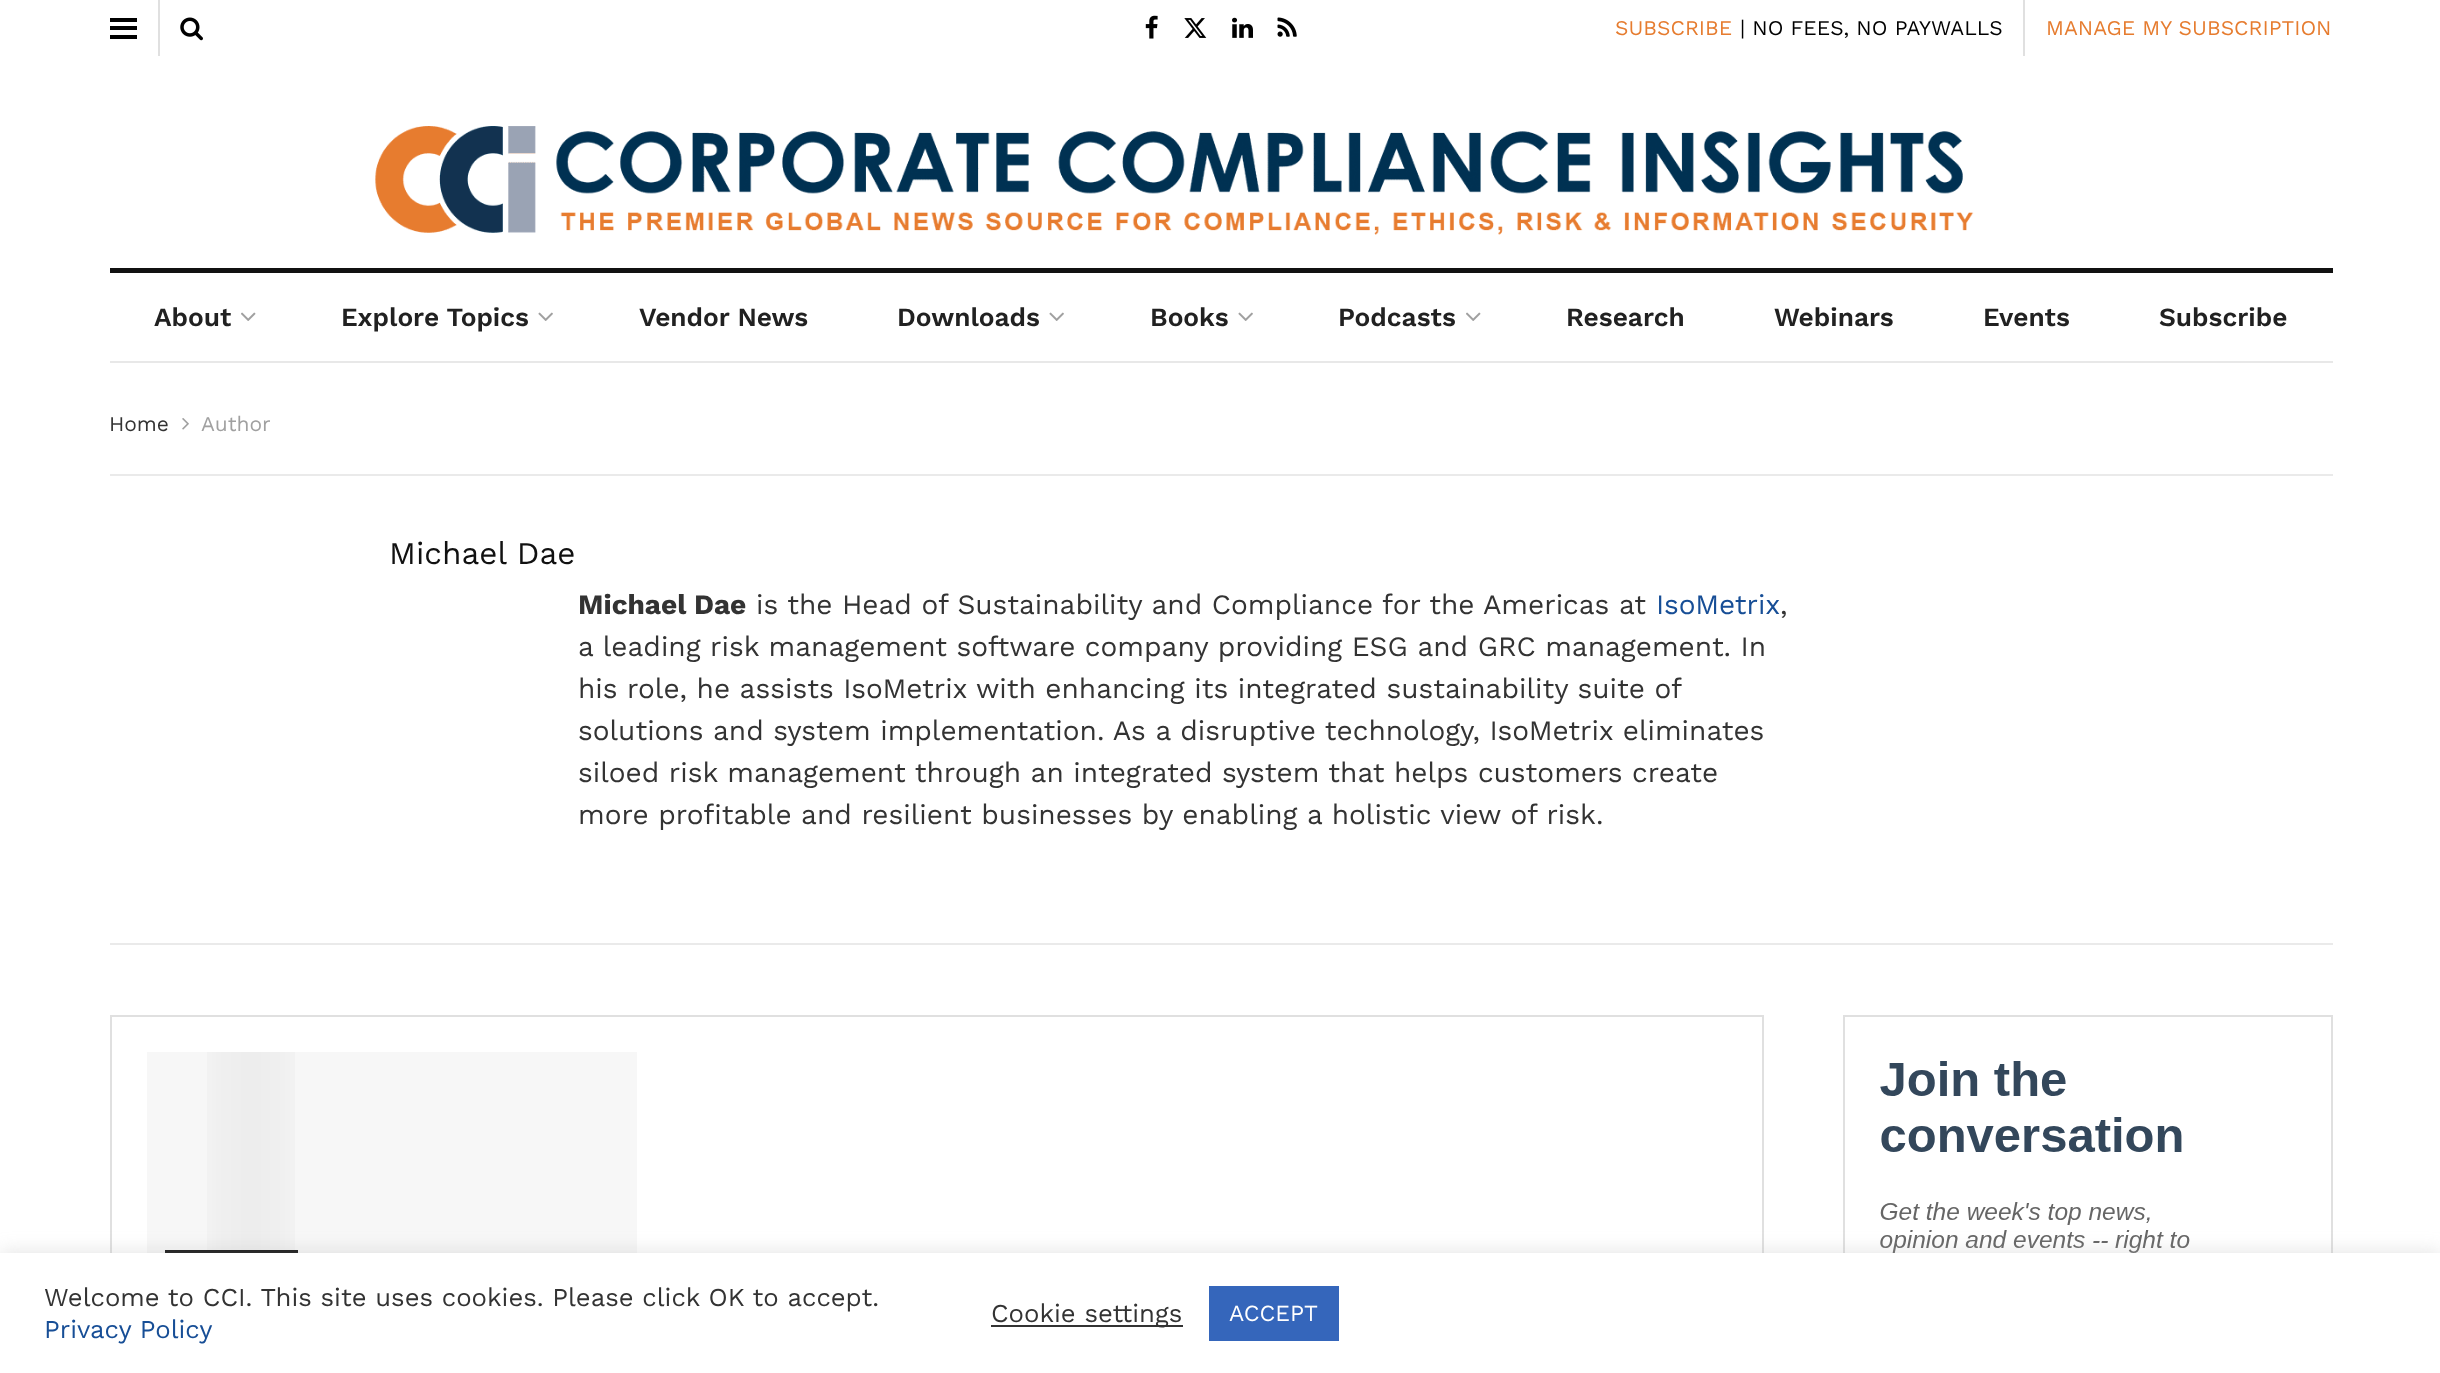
<svg xmlns="http://www.w3.org/2000/svg" width="2440" height="1373">
<style>
.a{font:21px Work Sans;fill:#e67c2f}
.b{font:21px Work Sans;fill:#000}
.c{font:600 26.25px Work Sans;fill:#212121}
.d{font:21px Work Sans;fill:#333}
.e{font:21px Work Sans;fill:#a0a0a0}
.f{font:31.5px Work Sans;fill:#111}
.g{font:bold 28px Work Sans;fill:#333}
.h{font:28px Work Sans;fill:#333}
.i{font:28px Work Sans;fill:#174e96}
.j{font:25.7px Work Sans;fill:#333}
.k{font:25.7px Work Sans;fill:#174e96}
.l{font:23px Work Sans;fill:#fff}
</style>
<rect width="100%" height="100%" fill="#fff"/>
<path fill="#e0e0e0" d="M158 0h2v56H158z"/>
<path fill="#000" d="M110 18h27v4H110z"/>
<path fill="#000" d="M110 26h27v4H110z"/>
<path fill="#000" d="M110 35h27v4H110z"/>
<image href="1.png" x="180" y="17" width="23" height="24"/>
<image href="2.png" x="1145" y="15" width="13" height="24"/>
<image href="3.png" x="1184" y="18" width="23" height="20"/>
<image href="4.png" x="1232" y="17" width="21" height="21"/>
<image href="5.png" x="1277" y="17" width="20" height="20"/>
<path fill="#e0e0e0" d="M2023 0h2v56H2023z"/>
<image href="6.png" x="375" y="126" width="1599" height="109"/>
<path fill="#111" d="M110 268h2223v5H110z"/>
<path fill="#e8e8e8" d="M110 361h2223v2H110z"/>
<image href="7.png" x="241" y="312" width="15" height="9"/>
<image href="8.png" x="538" y="312" width="15" height="9"/>
<image href="8.png" x="1049" y="312" width="15" height="9"/>
<image href="8.png" x="1238" y="312" width="15" height="9"/>
<image href="7.png" x="1466" y="312" width="15" height="9"/>
<image href="9.png" x="182" y="418" width="7" height="12"/>
<path fill="#eaeaea" d="M110 474h2223v2H110z"/>
<path fill="#eaeaea" d="M110 943h2223v2H110z"/>
<path fill="none" stroke="#e0e0e0" stroke-width="2" d="M111 1016h1652v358H111z"/>
<path fill="#f7f7f7" d="M147 1052h490v201H147z"/>
<image href="10.png" x="207" y="1052" width="88" height="198"/>
<path fill="#111" d="M165 1250h133v3H165z"/>
<path fill="none" stroke="#e0e0e0" stroke-width="2" d="M1844 1016h488v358H1844z"/>
<image href="11.png" x="1880" y="1061" width="310" height="192"/>
<path fill="#acabab4d" filter="blur(9px)" d="M0 1251h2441v121H0z"/>
<path fill="#fff" d="M0 1253h2440v120H0z"/>
<path fill="#333" d="M991 1325h192v2H991z"/>
<path fill="#3566bb" d="M1209 1286h130v55H1209z"/>
<text class="a" x="1615" y="35">SUBSCRIBE</text>
<text class="b" x="1740" y="35">| NO FEES, NO PAYWALLS</text>
<text class="a" x="2046" y="35">MANAGE MY SUBSCRIPTION</text>
<text class="c" x="154" y="326">About</text>
<text class="c" x="341" y="326">Explore Topics</text>
<text class="c" x="639" y="326">Vendor News</text>
<text class="c" x="897" y="326">Downloads</text>
<text class="c" x="1150" y="326">Books</text>
<text class="c" x="1338" y="326">Podcasts</text>
<text class="c" x="1566" y="326">Research</text>
<text class="c" x="1774" y="326">Webinars</text>
<text class="c" x="1983" y="326">Events</text>
<text class="c" x="2159" y="326">Subscribe</text>
<text class="d" x="109" y="431">Home</text>
<text class="e" x="201" y="431">Author</text>
<text class="f" x="389" y="564">Michael Dae</text>
<text class="g" x="578" y="614">Michael Dae</text>
<text class="h" x="756" y="614">is the Head of Sustainability and Compliance for the Americas at</text>
<text class="i" x="1656" y="614">IsoMetrix</text>
<text class="h" x="1780" y="614">,</text>
<text class="h" x="578" y="656">a leading risk management software company providing ESG and GRC management. In</text>
<text class="h" x="578" y="698">his role, he assists IsoMetrix with enhancing its integrated sustainability suite of</text>
<text class="h" x="578" y="740">solutions and system implementation. As a disruptive technology, IsoMetrix eliminates</text>
<text class="h" x="578" y="782">siloed risk management through an integrated system that helps customers create</text>
<text class="h" x="578" y="824">more profitable and resilient businesses by enabling a holistic view of risk.</text>
<text class="j" x="44" y="1306">Welcome to CCI. This site uses cookies. Please click OK to accept.</text>
<text class="k" x="44" y="1338">Privacy Policy</text>
<text class="j" x="991" y="1322">Cookie settings</text>
<text class="l" x="1229" y="1321">ACCEPT</text>
</svg>
